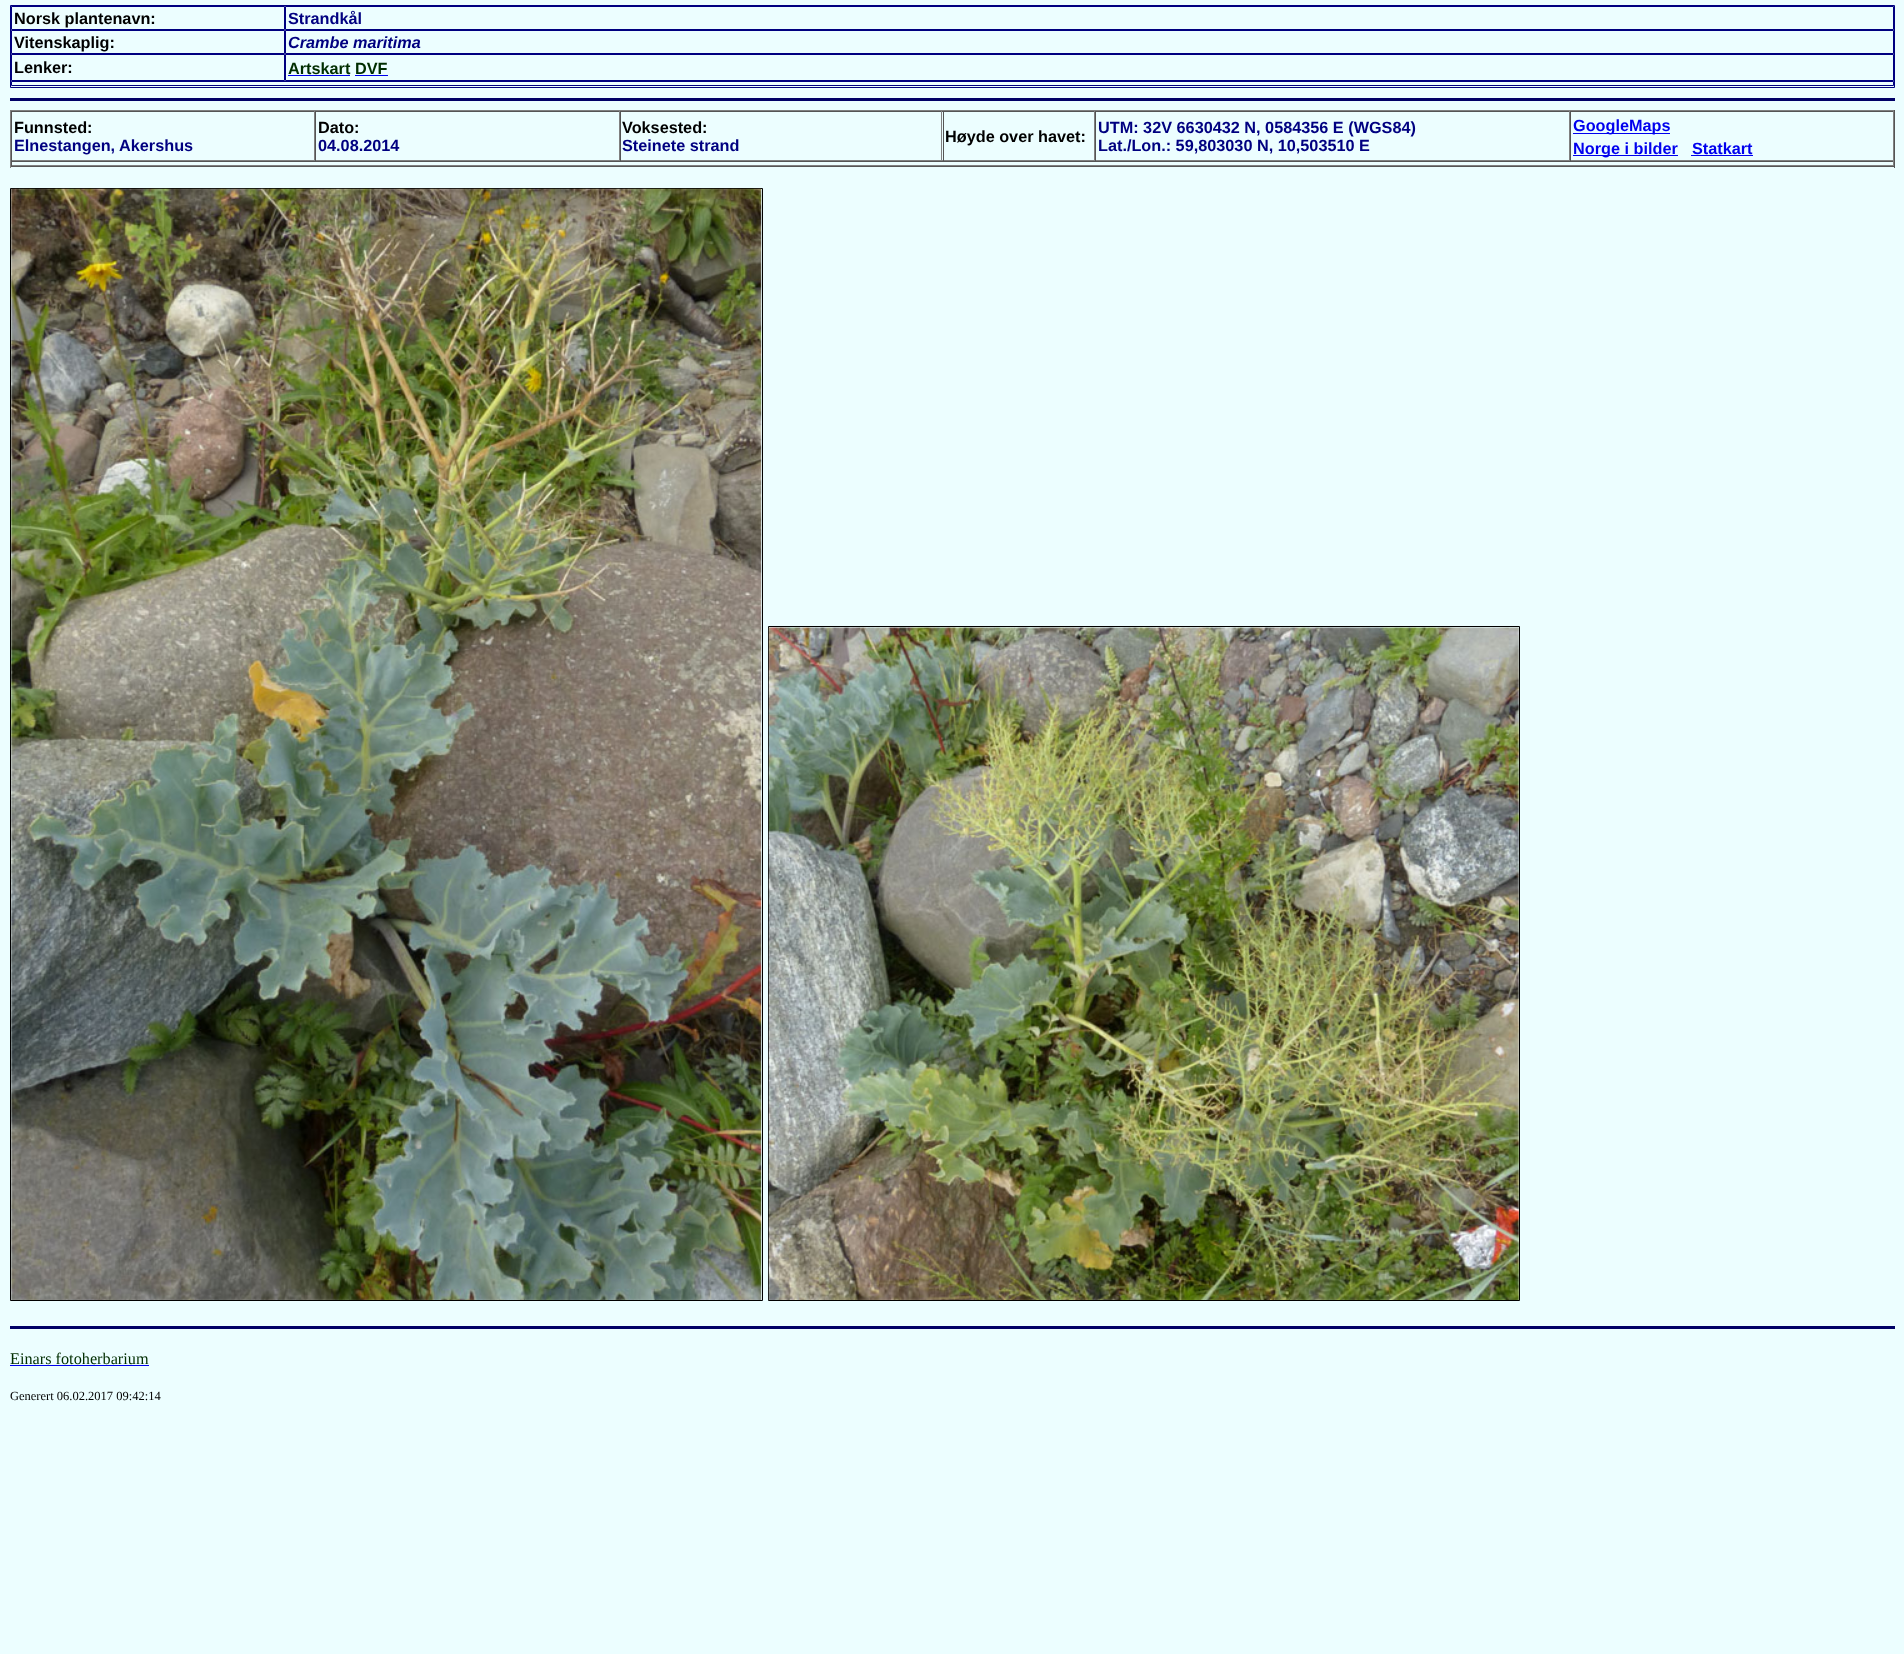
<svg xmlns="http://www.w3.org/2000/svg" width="1904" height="1654">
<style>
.a{font:bold 16.25px Liberation Sans;fill:#000}
.b{font:bold 16.25px Liberation Sans;fill:#000080}
.c{font:italic bold 16.25px Liberation Sans;fill:#000080}
.d{font:bold 16.25px Liberation Sans;fill:#002d00}
.e{font:bold 16.25px Liberation Sans;fill:#00e}
.f{font:16.25px Liberation Serif;fill:#002d00}
.g{font:12.5px Liberation Serif;fill:#000}
</style>
<rect width="100%" height="100%" fill="#ecfeff"/>
<path fill="none" stroke="#000080" d="M10.5 5.5h1884v82H10.5z"/>
<path fill="none" stroke="#000080" d="M11.5 6.5h273v23H11.5z"/>
<path fill="none" stroke="#000080" d="M285.5 6.5h1608v23H285.5z"/>
<path fill="none" stroke="#000080" d="M11.5 30.5h273v23H11.5z"/>
<path fill="none" stroke="#000080" d="M285.5 30.5h1608v23H285.5z"/>
<path fill="none" stroke="#000080" d="M11.5 54.5h273v26H11.5z"/>
<path fill="none" stroke="#000080" d="M285.5 54.5h1608v26H285.5z"/>
<path fill="#00e" d="M288 75h62v1H288z"/>
<path fill="#00e" d="M355 75h33v1H355z"/>
<path fill="none" stroke="#000080" d="M11.5 81.5h1882v4H11.5z"/>
<path fill="#006" d="M10 98h1885v3H10z"/>
<path fill="#808080" d="M10 110h1885v1H10z"/>
<path fill="#555" d="M1894 110h1v58H1894z"/>
<path fill="#555" d="M10 166h1885v1H10z"/>
<path fill="#808080" d="M10 110h1v58H10z"/>
<path fill="#555" d="M11 111h1883v1H11z"/>
<path fill="#808080" d="M314 111h1v50H314z"/>
<path fill="#808080" d="M11 160h304v1H11z"/>
<path fill="#555" d="M11 111h1v50H11z"/>
<path fill="#808080" d="M619 111h1v50H619z"/>
<path fill="#808080" d="M315 160h305v1H315z"/>
<path fill="#555" d="M315 111h1v50H315z"/>
<path fill="#808080" d="M941 111h1v50H941z"/>
<path fill="#808080" d="M620 160h323v1H620z"/>
<path fill="#555" d="M620 111h1v50H620z"/>
<path fill="#808080" d="M1094 111h1v50H1094z"/>
<path fill="#808080" d="M943 160h152v1H943z"/>
<path fill="#555" d="M943 111h1v50H943z"/>
<path fill="#808080" d="M1569 111h1v50H1569z"/>
<path fill="#808080" d="M1095 160h475v1H1095z"/>
<path fill="#555" d="M1095 111h1v50H1095z"/>
<path fill="#808080" d="M1893 111h1v50H1893z"/>
<path fill="#808080" d="M1570 160h324v1H1570z"/>
<path fill="#555" d="M1570 111h1v50H1570z"/>
<path fill="#00e" d="M1573 133h97v1H1573z"/>
<path fill="#00e" d="M1573 155h105v1H1573z"/>
<path fill="#00e" d="M1691 155h62v1H1691z"/>
<path fill="#555" d="M11 161h1883v1H11z"/>
<path fill="#808080" d="M1893 161h1v5H1893z"/>
<path fill="#808080" d="M11 165h1883v1H11z"/>
<path fill="#555" d="M11 161h1v5H11z"/>
<path fill="none" stroke="#000" d="M10.5 188.5h752v1112H10.5z"/>
<image href="1.png" x="11" y="188" width="751" height="1112"/>
<path fill="none" stroke="#000" d="M768.5 626.5h751v674H768.5z"/>
<image href="2.png" x="768" y="627" width="751" height="673"/>
<path fill="#006" d="M10 1326h1885v3H10z"/>
<path fill="#00e" d="M10 1365h139v1H10z"/>
<text class="a" x="14" y="24">Norsk plantenavn:</text>
<text class="b" x="288" y="24">Strandkål</text>
<text class="a" x="14" y="48">Vitenskaplig:</text>
<text class="c" x="288" y="48">Crambe maritima</text>
<text class="a" x="14" y="73">Lenker:</text>
<text class="d" x="288" y="74">Artskart</text>
<text class="d" x="355" y="74">DVF</text>
<text class="a" x="14" y="133">Funnsted:</text>
<text class="b" x="14" y="151">Elnestangen, Akershus</text>
<text class="a" x="318" y="133">Dato:</text>
<text class="b" x="318" y="151">04.08.2014</text>
<text class="a" x="622" y="133">Voksested:</text>
<text class="b" x="622" y="151">Steinete strand</text>
<text class="a" x="945" y="142">Høyde over havet:</text>
<text class="b" x="1098" y="133">UTM: 32V 6630432 N, 0584356 E (WGS84)</text>
<text class="b" x="1098" y="151">Lat./Lon.: 59,803030 N, 10,503510 E</text>
<text class="e" x="1573" y="131">GoogleMaps</text>
<text class="e" x="1573" y="154">Norge i bilder</text>
<text class="e" x="1692" y="154">Statkart</text>
<text class="f" x="10" y="1364">Einars fotoherbarium</text>
<text class="g" x="10" y="1400">Generert 06.02.2017 09:42:14</text>
</svg>
